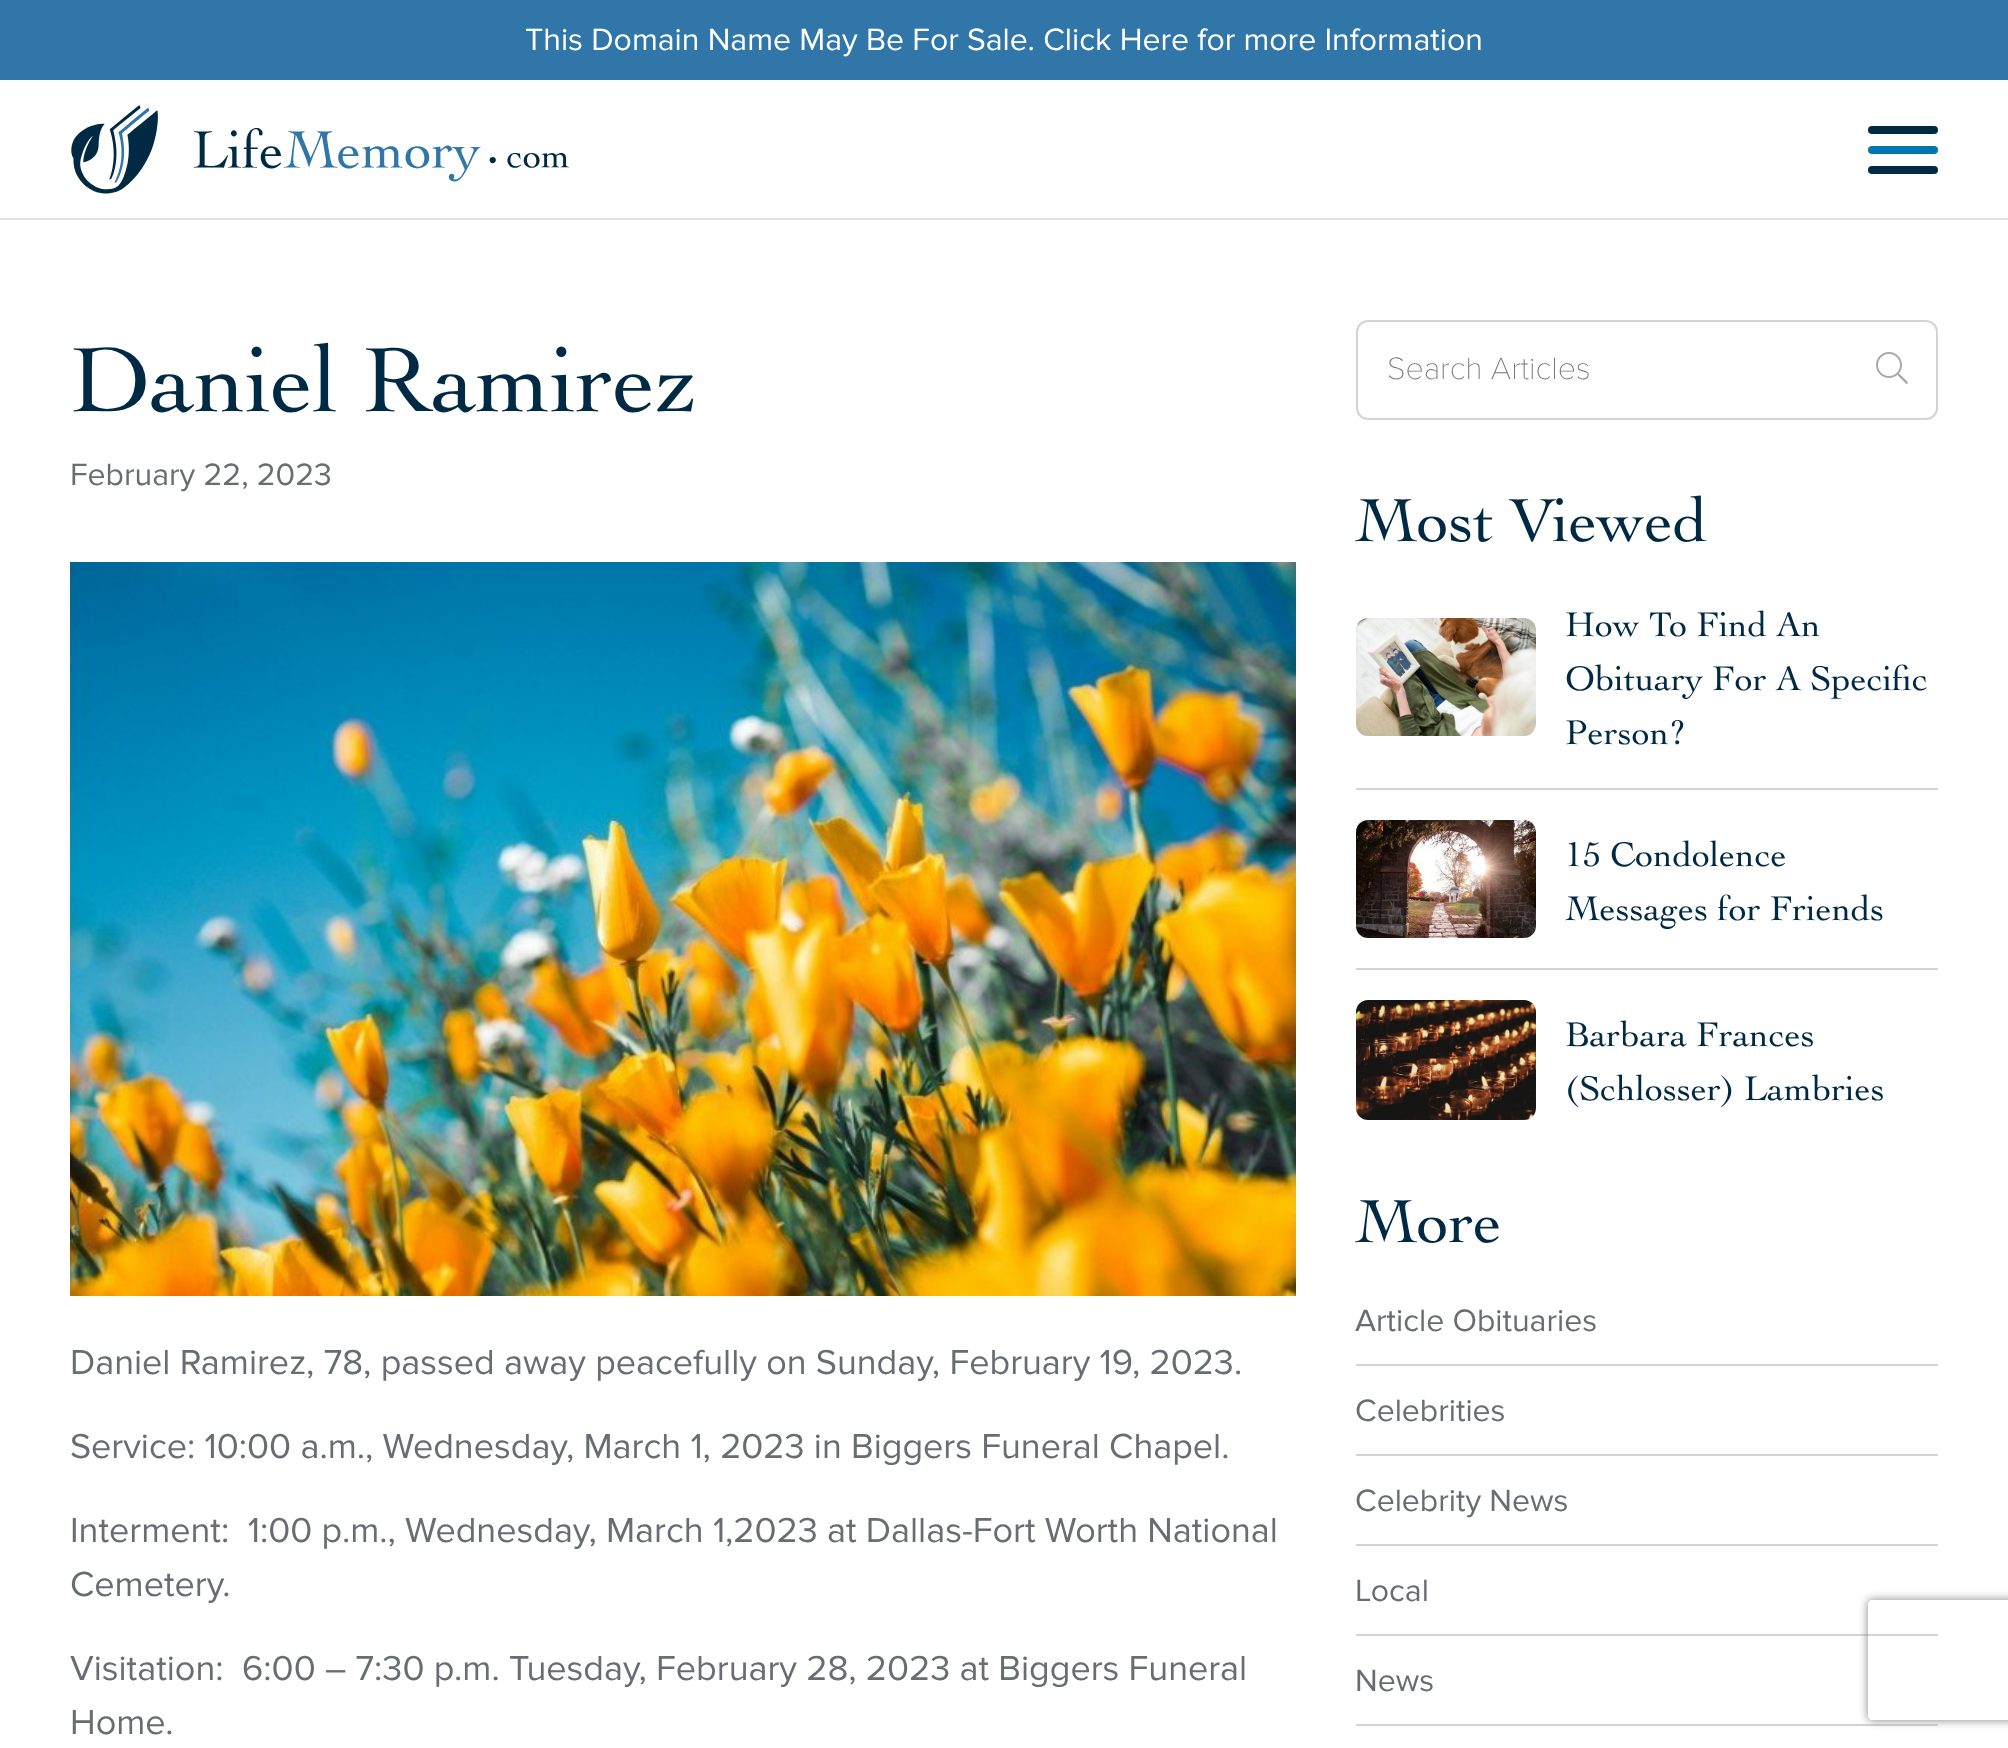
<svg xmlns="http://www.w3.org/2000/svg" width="2008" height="1748">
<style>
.a{font:32px Proxima Nova;fill:#fff}
.b{font:500 96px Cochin;fill:#002a44}
.c{font:32px Proxima Nova;fill:#676d73}
.d{font:36px Proxima Nova;fill:#676d73}
.e{font:100 32px Proxima Nova;fill:#757575}
.f{font:500 64px Cochin;fill:#002a44}
.g{font:500 36px Cochin;fill:#002a44}
</style>
<defs>
<clipPath id="clip1"><path d="M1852 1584h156v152h-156zm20 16h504c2 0 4 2 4 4v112c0 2-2 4-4 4h-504c-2 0-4-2-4-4v-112c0-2 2-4 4-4z" clip-rule="evenodd"/></clipPath>
</defs>
<rect width="100%" height="100%" fill="#fff"/>
<path fill="#e1e1e1" d="M0 218h2008v2H0z"/>
<path fill="#3076a8" d="M0 0h2008v80H0z"/>
<image href="1.png" x="71" y="105" width="498" height="89"/>
<rect fill="#0077ae" x="1868" y="146" width="70" height="8" rx="4"/>
<rect fill="#002a44" x="1868" y="126" width="70" height="8" rx="4"/>
<rect fill="#002a44" x="1868" y="166" width="70" height="8" rx="4"/>
<image href="2.png" x="70" y="562" width="1226" height="734"/>
<rect fill="none" stroke="#d3d4d5" stroke-width="2" x="1357" y="321" width="580" height="98" rx="11"/>
<image href="3.png" x="1876" y="352" width="32" height="32"/>
<path fill="#d3d4d5" d="M1356 788h582v2H1356z"/>
<image href="4.png" x="1356" y="618" width="180" height="118"/>
<path fill="#d3d4d5" d="M1356 968h582v2H1356z"/>
<image href="5.png" x="1356" y="820" width="180" height="118"/>
<image href="6.png" x="1356" y="1000" width="180" height="120"/>
<path fill="#d3d4d5" d="M1356 1364h582v2H1356z"/>
<path fill="#d3d4d5" d="M1356 1454h582v2H1356z"/>
<path fill="#d3d4d5" d="M1356 1544h582v2H1356z"/>
<path fill="#d3d4d5" d="M1356 1634h582v2H1356z"/>
<path fill="#d3d4d5" d="M1356 1724h582v2H1356z"/>
<g clip-path="url(#clip1)">
<rect fill="#808080" filter="blur(5px)" x="1868" y="1600" width="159" height="120" rx="4"/>
</g>
<text class="a" x="525" y="50">This Domain Name May Be For Sale. Click Here for more Information</text>
<text class="b" x="70" y="411">Daniel Ramirez</text>
<text class="c" x="70" y="485">February 22, 2023</text>
<text class="d" x="70" y="1374">Daniel Ramirez, 78, passed away peacefully on Sunday, February 19, 2023.</text>
<text class="d" x="70" y="1458">Service: 10:00 a.m., Wednesday, March 1, 2023 in Biggers Funeral Chapel.</text>
<text class="d" xml:space="preserve" x="70" y="1542">Interment:  1:00 p.m., Wednesday, March 1,2023 at Dallas-Fort Worth National</text>
<text class="d" x="70" y="1596">Cemetery.</text>
<text class="d" xml:space="preserve" x="70" y="1680">Visitation:  6:00 – 7:30 p.m. Tuesday, February 28, 2023 at Biggers Funeral</text>
<text class="d" x="70" y="1734">Home.</text>
<text class="e" x="1387" y="379">Search Articles</text>
<text class="f" x="1355" y="541">Most Viewed</text>
<text class="g" x="1565" y="636">How To Find An</text>
<text class="g" x="1565" y="690">Obituary For A Specific</text>
<text class="g" x="1565" y="744">Person?</text>
<text class="g" x="1565" y="866">15 Condolence</text>
<text class="g" x="1565" y="920">Messages for Friends</text>
<text class="g" x="1565" y="1046">Barbara Frances</text>
<text class="g" x="1565" y="1100">(Schlosser) Lambries</text>
<text class="f" x="1355" y="1242">More</text>
<text class="c" x="1355" y="1331">Article Obituaries</text>
<text class="c" x="1355" y="1421">Celebrities</text>
<text class="c" x="1355" y="1511">Celebrity News</text>
<text class="c" x="1355" y="1601">Local</text>
<text class="c" x="1355" y="1691">News</text>
</svg>
